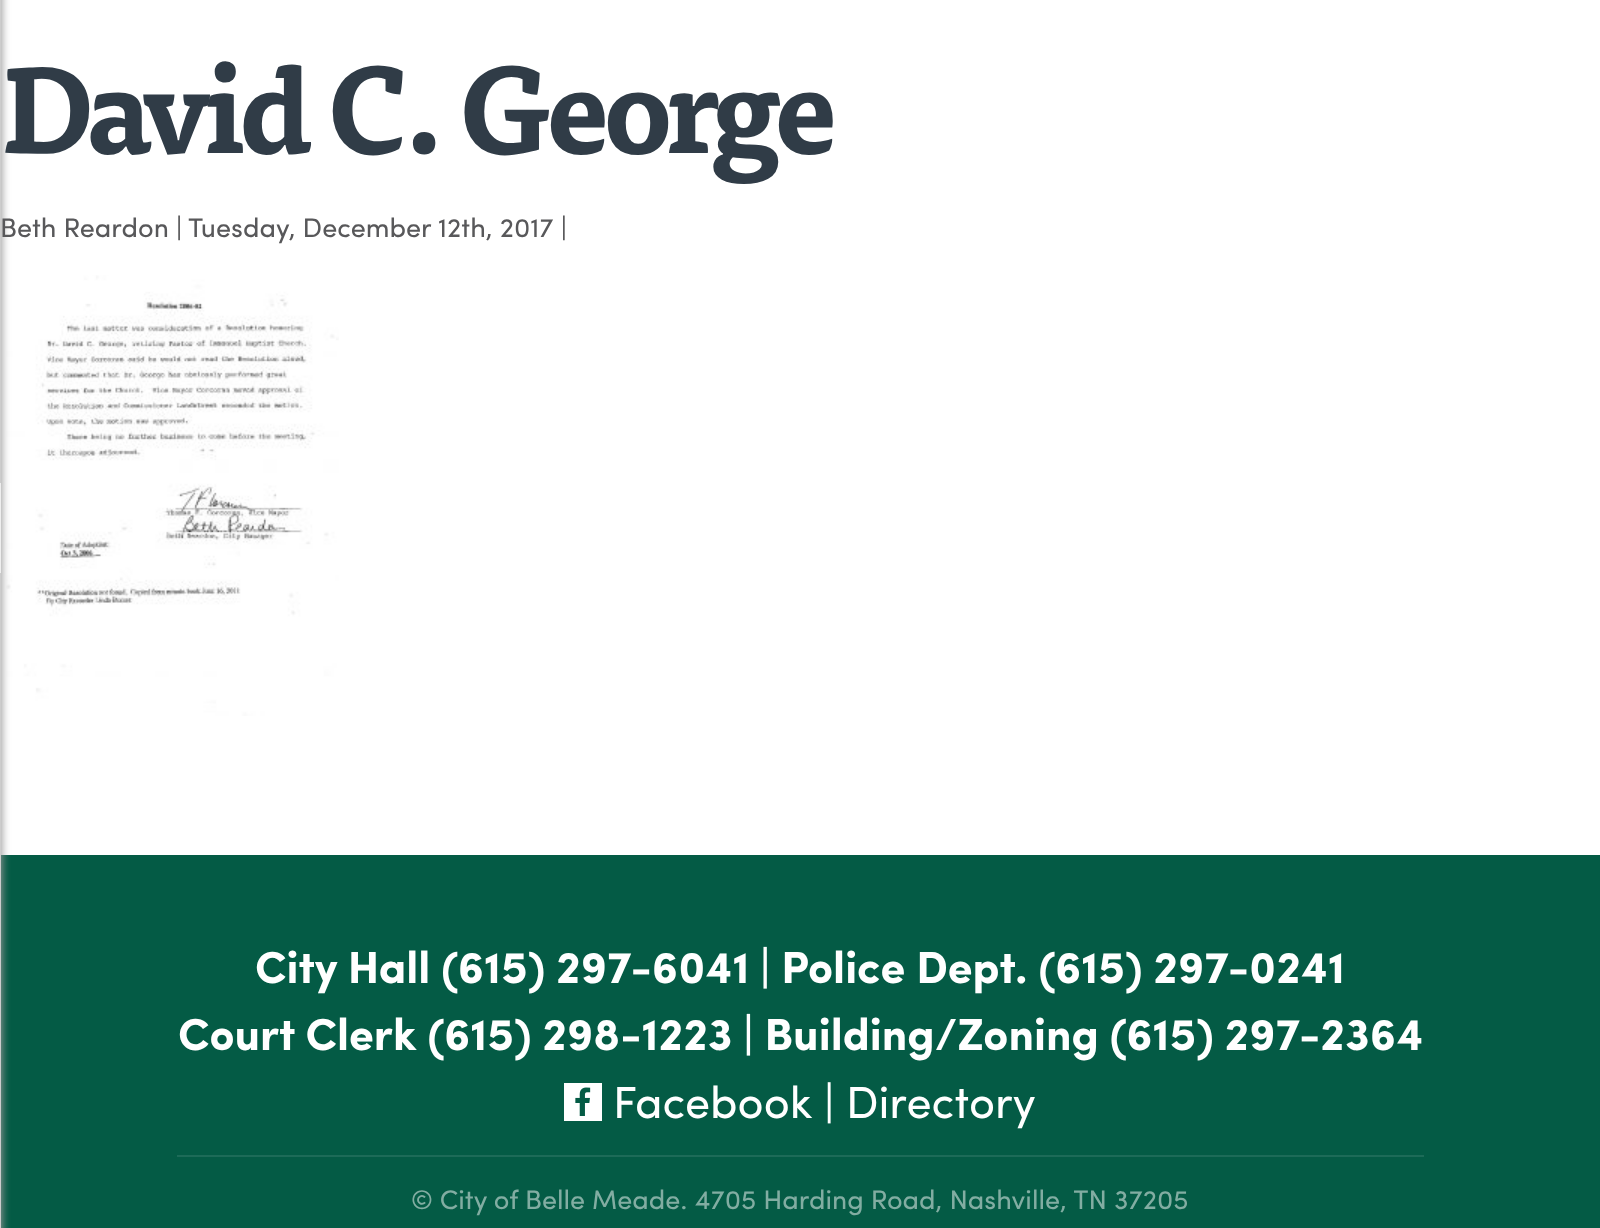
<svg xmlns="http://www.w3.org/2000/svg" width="1600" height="1228">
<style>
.a{font:bold 120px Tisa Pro;letter-spacing:-6px;fill:#303c47}
.b{font:27px Sofia;fill:#58585a}
.c{font:bold 45px Sofia;fill:#fff}
.d{font:45px Sofia;fill:#fff}
.e{font:27px Sofia;fill:#82ada2}
</style>
<rect width="100%" height="100%" fill="#fff"/>
<image href="1.png" x="6" y="275" width="333" height="441"/>
<path fill="#045b45" d="M1 855h1599v373H1z"/>
<rect fill="#999" filter="blur(4px)" x="-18" y="-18" width="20" height="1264" rx="6"/>
<path fill="#ccc" d="M0 0h1v483H0z"/>
<path fill="#eee" d="M0 483h1v90H0z"/>
<path fill="#ccc" d="M0 573h1v655H0z"/>
<path fill="#1d6b58" d="M177 1155h1247v2H177z"/>
<path fill="#fff" d="M564 1083h38v38H564z"/>
<image href="2.png" x="575" y="1087" width="16" height="29"/>
<text class="a" x="0" y="153">David C. George</text>
<text class="b" x="0" y="237">Beth Reardon</text>
<text class="b" x="176" y="237">|</text>
<text class="b" x="188" y="237">Tuesday, December 12th, 2017 |</text>
<text class="c" x="255" y="983">City Hall (615) 297-6041 | Police Dept. (615) 297-0241</text>
<text class="c" x="178" y="1050">Court Clerk (615) 298-1223 | Building/Zoning (615) 297-2364</text>
<text class="d" x="613" y="1118">Facebook | Directory</text>
<text class="e" x="411" y="1209">© City of Belle Meade. 4705 Harding Road, Nashville, TN 37205</text>
</svg>
